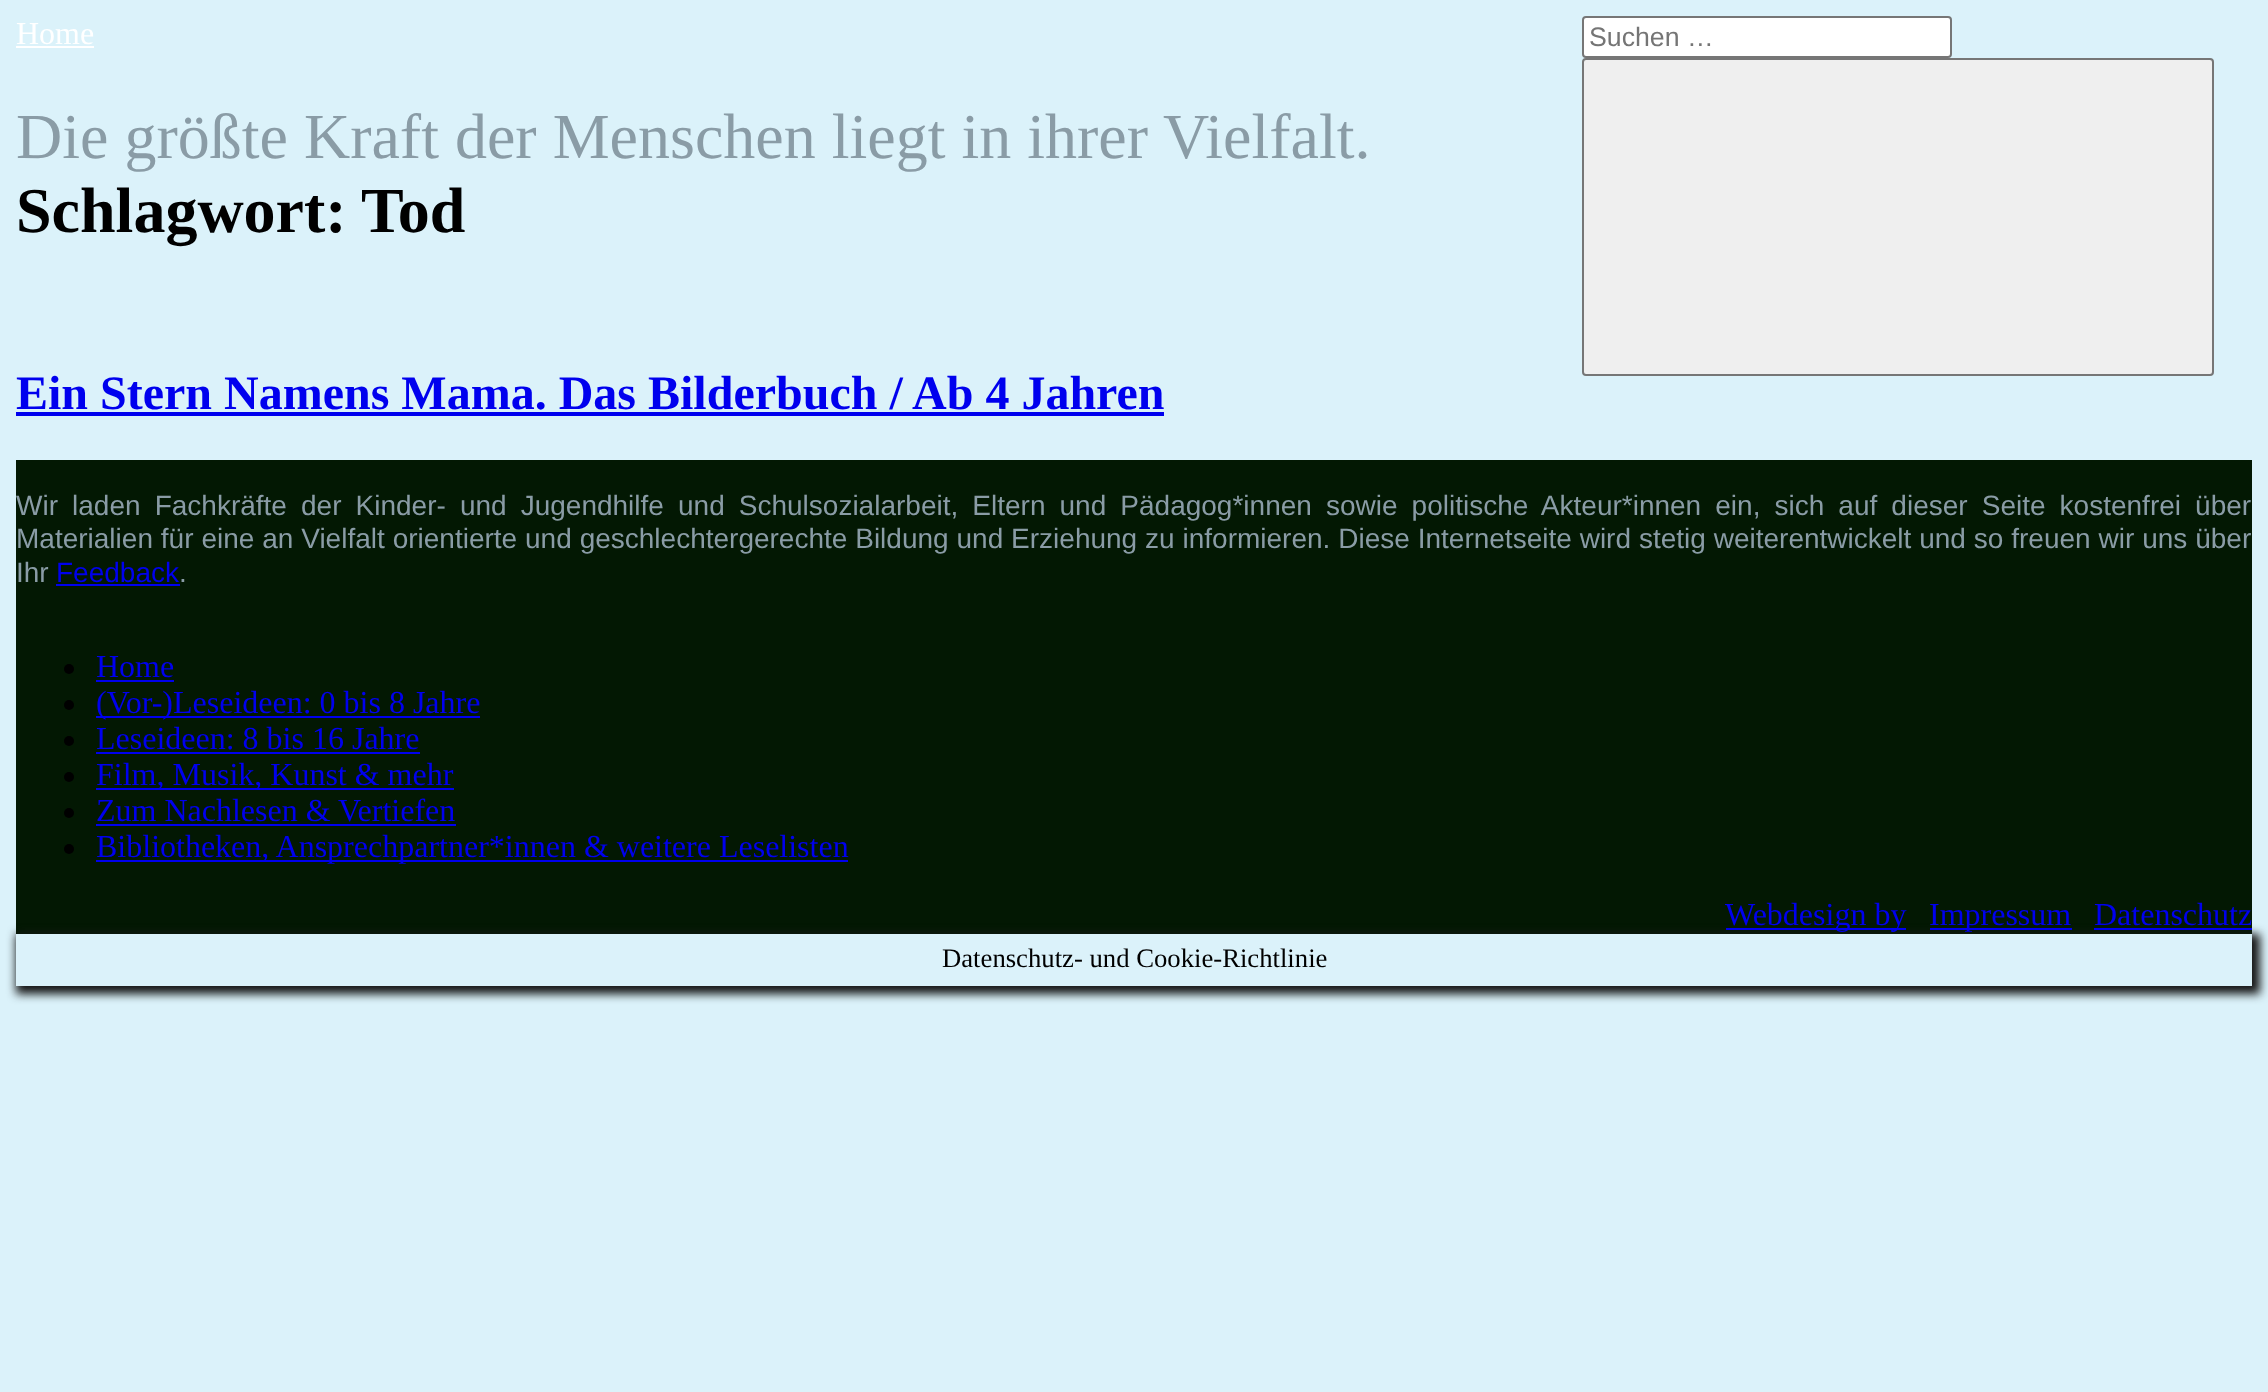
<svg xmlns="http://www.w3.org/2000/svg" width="2268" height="1392">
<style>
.a{font:32px Liberation Serif;fill:#fff}
.b{font:64px Liberation Serif;fill:#8a9ca6}
.c{font:26.7px Liberation Sans;fill:#757575}
.d{font:bold 64px Liberation Serif;fill:#000}
.e{font:bold 48px Liberation Serif;fill:#00e}
.f{font:28px Liberation Sans;fill:#8a9ca6}
.g{font:28px Liberation Sans;fill:#00e}
.h{font:32px Liberation Serif;fill:#00e}
.i{font:26.7px Liberation Serif;fill:#000}
</style>
<defs>
<clipPath id="clip1"><path d="M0 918h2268v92h-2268zm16 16h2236v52h-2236z" clip-rule="evenodd"/></clipPath>
</defs>
<rect width="100%" height="100%" fill="#dbf2fa"/>
<path fill="#fff" d="M16 46h78v2H16z"/>
<rect fill="#fff" stroke="#767676" stroke-width="2" x="1583" y="17" width="368" height="40" rx="3"/>
<rect fill="#efefef" stroke="#767676" stroke-width="2" x="1583" y="59" width="630" height="316" rx="3"/>
<path fill="#00e" d="M16 412h1148v4H16z"/>
<path fill="#031803" d="M16 460h2236v474H16z"/>
<path fill="#00e" d="M56 584h124v2H56z"/>
<circle fill="#000" cx="69" cy="669" r="5"/>
<path fill="#00e" d="M96 680h78v2H96z"/>
<circle fill="#000" cx="69" cy="705" r="5"/>
<path fill="#00e" d="M96 716h384v2H96z"/>
<circle fill="#000" cx="69" cy="741" r="5"/>
<path fill="#00e" d="M96 752h324v2H96z"/>
<circle fill="#000" cx="69" cy="777" r="5"/>
<path fill="#00e" d="M96 788h358v2H96z"/>
<circle fill="#000" cx="69" cy="813" r="5"/>
<path fill="#00e" d="M96 824h360v2H96z"/>
<circle fill="#000" cx="69" cy="849" r="5"/>
<path fill="#00e" d="M96 860h752v2H96z"/>
<g clip-path="url(#clip1)">
<path fill="#161616" filter="blur(5px)" d="M16 934h2244v60H16z"/>
</g>
<path fill="#00e" d="M1726 928h180v2H1726z"/>
<path fill="#00e" d="M1930 928h142v2H1930z"/>
<path fill="#00e" d="M2094 928h158v2H2094z"/>
<text class="a" x="16" y="44">Home</text>
<text class="b" x="16" y="158">Die größte Kraft der Menschen liegt in ihrer Vielfalt.</text>
<text class="c" x="1589" y="46">Suchen …</text>
<text class="d" x="16" y="232">Schlagwort:</text>
<text class="d" x="361" y="232">Tod</text>
<text class="e" x="16" y="409">Ein Stern Namens Mama. Das Bilderbuch / Ab 4 Jahren</text>
<text class="f" x="16" y="515" word-spacing="6.3">Wir laden Fachkräfte der Kinder- und Jugendhilfe und Schulsozialarbeit, Eltern und Pädagog*innen sowie politische Akteur*innen ein, sich auf dieser Seite kostenfrei über</text>
<text class="f" x="16" y="548" word-spacing="0.1">Materialien für eine an Vielfalt orientierte und geschlechtergerechte Bildung und Erziehung zu informieren. Diese Internetseite wird stetig weiterentwickelt und so freuen wir uns über</text>
<text class="f" x="16" y="582">Ihr</text>
<text class="g" x="56" y="582">Feedback</text>
<text class="f" x="179" y="582">.</text>
<text class="h" x="96" y="677">Home</text>
<text class="h" x="96" y="713">(Vor-)Leseideen: 0 bis 8 Jahre</text>
<text class="h" x="96" y="749">Leseideen: 8 bis 16 Jahre</text>
<text class="h" x="96" y="785">Film, Musik, Kunst &amp; mehr</text>
<text class="h" x="96" y="821">Zum Nachlesen &amp; Vertiefen</text>
<text class="h" x="96" y="857">Bibliotheken, Ansprechpartner*innen &amp; weitere Leselisten</text>
<text class="h" x="1725" y="925">Webdesign by</text>
<text class="h" x="1929" y="925">Impressum</text>
<text class="h" x="2094" y="925">Datenschutz</text>
<text class="i" x="942" y="967">Datenschutz- und Cookie-Richtlinie</text>
</svg>
